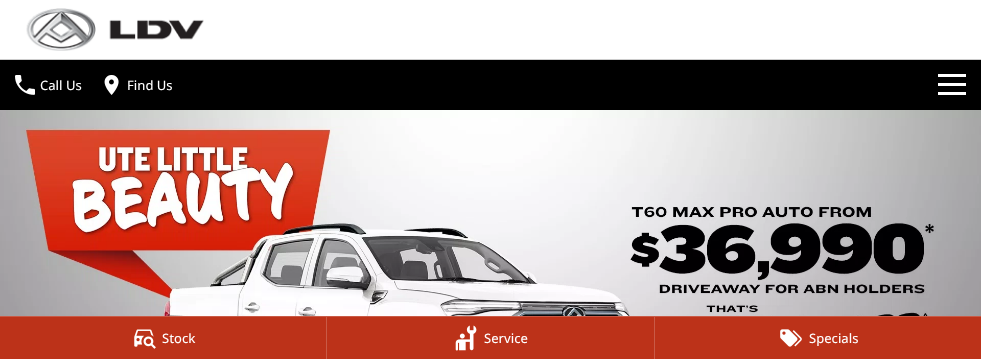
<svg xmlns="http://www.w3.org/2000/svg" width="981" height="359">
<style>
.a{font:500 13px Open Sans;fill:#fff}
</style>
<rect width="100%" height="100%" fill="#fff"/>
<path fill="#ccc" d="M0 59h981v1H0z"/>
<image href="1.png" x="26" y="8" width="178" height="43"/>
<path fill="#000" d="M0 60h981v50H0z"/>
<image href="2.png" x="15" y="75" width="20" height="20"/>
<image href="3.png" x="104" y="75" width="15" height="20"/>
<path fill="#fff" d="M938 74h28v3H938z"/>
<path fill="#fff" d="M938 83h28v3H938z"/>
<path fill="#fff" d="M938 92h28v3H938z"/>
<image href="4.png" x="0" y="110" width="981" height="206"/>
<path fill="#c95a46" d="M0 316h981v1H0z"/>
<path fill="#bc3219" d="M0 317h326v42H0z"/>
<path fill="#c95a46" d="M326 317h1v42H326z"/>
<image href="5.png" x="134" y="329" width="22" height="20"/>
<path fill="#bc3219" d="M327 317h327v42H327z"/>
<path fill="#c95a46" d="M654 317h1v42H654z"/>
<image href="6.png" x="455" y="325" width="22" height="26"/>
<path fill="#bc3219" d="M655 317h326v42H655z"/>
<image href="7.png" x="780" y="329" width="22" height="18"/>
<text class="a" x="40" y="90">Call Us</text>
<text class="a" x="127" y="90">Find Us</text>
<text class="a" x="162" y="343">Stock</text>
<text class="a" x="484" y="343">Service</text>
<text class="a" x="809" y="343">Specials</text>
</svg>
